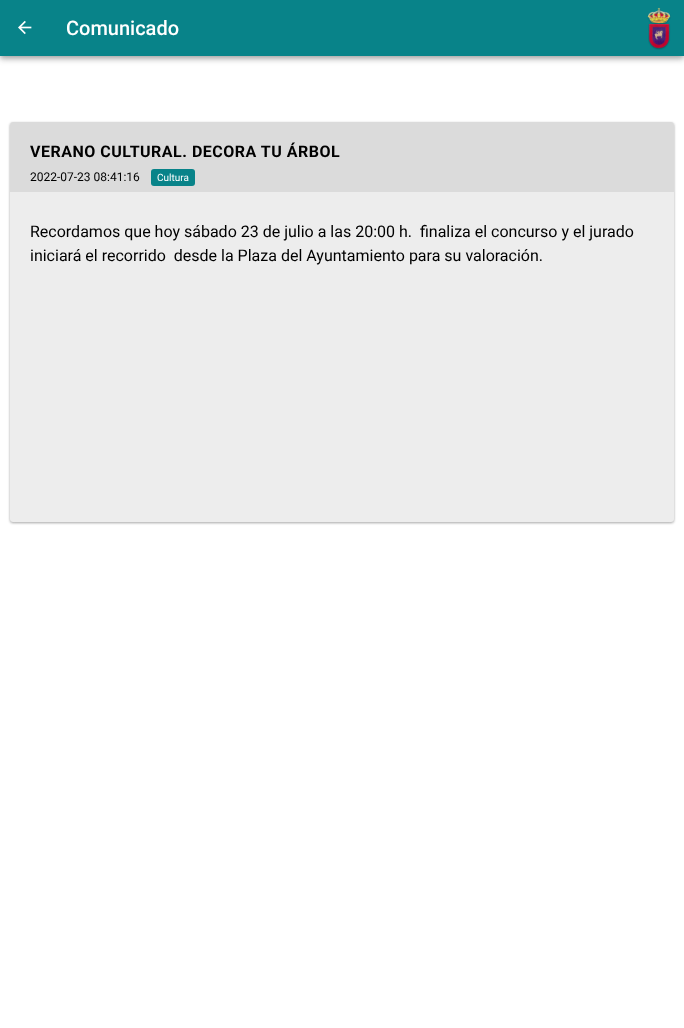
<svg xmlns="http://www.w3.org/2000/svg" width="684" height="1028">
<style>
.a{font:500 20px Roboto;fill:#fff}
.b{font:bold 16px Roboto;letter-spacing:0.5px;fill:#000}
.c{font:12px Roboto;fill:#000}
.d{font:10px Roboto;fill:#fff}
.e{font:16px Roboto;fill:#000}
</style>
<rect width="100%" height="100%" fill="#fff"/>
<path fill="#0000001f" filter="blur(5px)" d="M0 1h684v56H0z"/>
<path fill="#00000024" filter="blur(2.5px)" d="M0 4h684v56H0z"/>
<path fill="#00000033" filter="blur(2px)" d="M1 3h682v54H1z"/>
<path fill="#088389" d="M0 0h684v56H0z"/>
<image href="1.png" x="18" y="20" width="14" height="15"/>
<image href="2.png" x="647" y="7" width="24" height="43"/>
<rect fill="#0000003d" filter="blur(1px)" x="10" y="123" width="664" height="400" rx="3"/>
<rect fill="#0000001f" filter="blur(1.5px)" x="10" y="123" width="664" height="400" rx="3"/>
<rect fill="#ededed" x="10" y="122" width="664" height="400" rx="3"/>
<path fill="#dbdbdb" d="M13 122h658c1.5 0 3 1.5 3 3v67h-664v-67c0-1.5 1.5-3 3-3z"/>
<rect fill="#088389" x="151" y="169" width="44" height="17" rx="3"/>
<text class="a" x="66" y="35">Comunicado</text>
<text class="b" x="30" y="157">VERANO CULTURAL. DECORA TU ÁRBOL</text>
<text class="c" x="30" y="181">2022-07-23 08:41:16</text>
<text class="d" x="157" y="181">Cultura</text>
<text class="e" xml:space="preserve" x="30" y="237">Recordamos que hoy sábado 23 de julio a las 20:00 h.  finaliza el concurso y el jurado</text>
<text class="e" xml:space="preserve" x="30" y="261">iniciará el recorrido  desde la Plaza del Ayuntamiento para su valoración.</text>
</svg>
